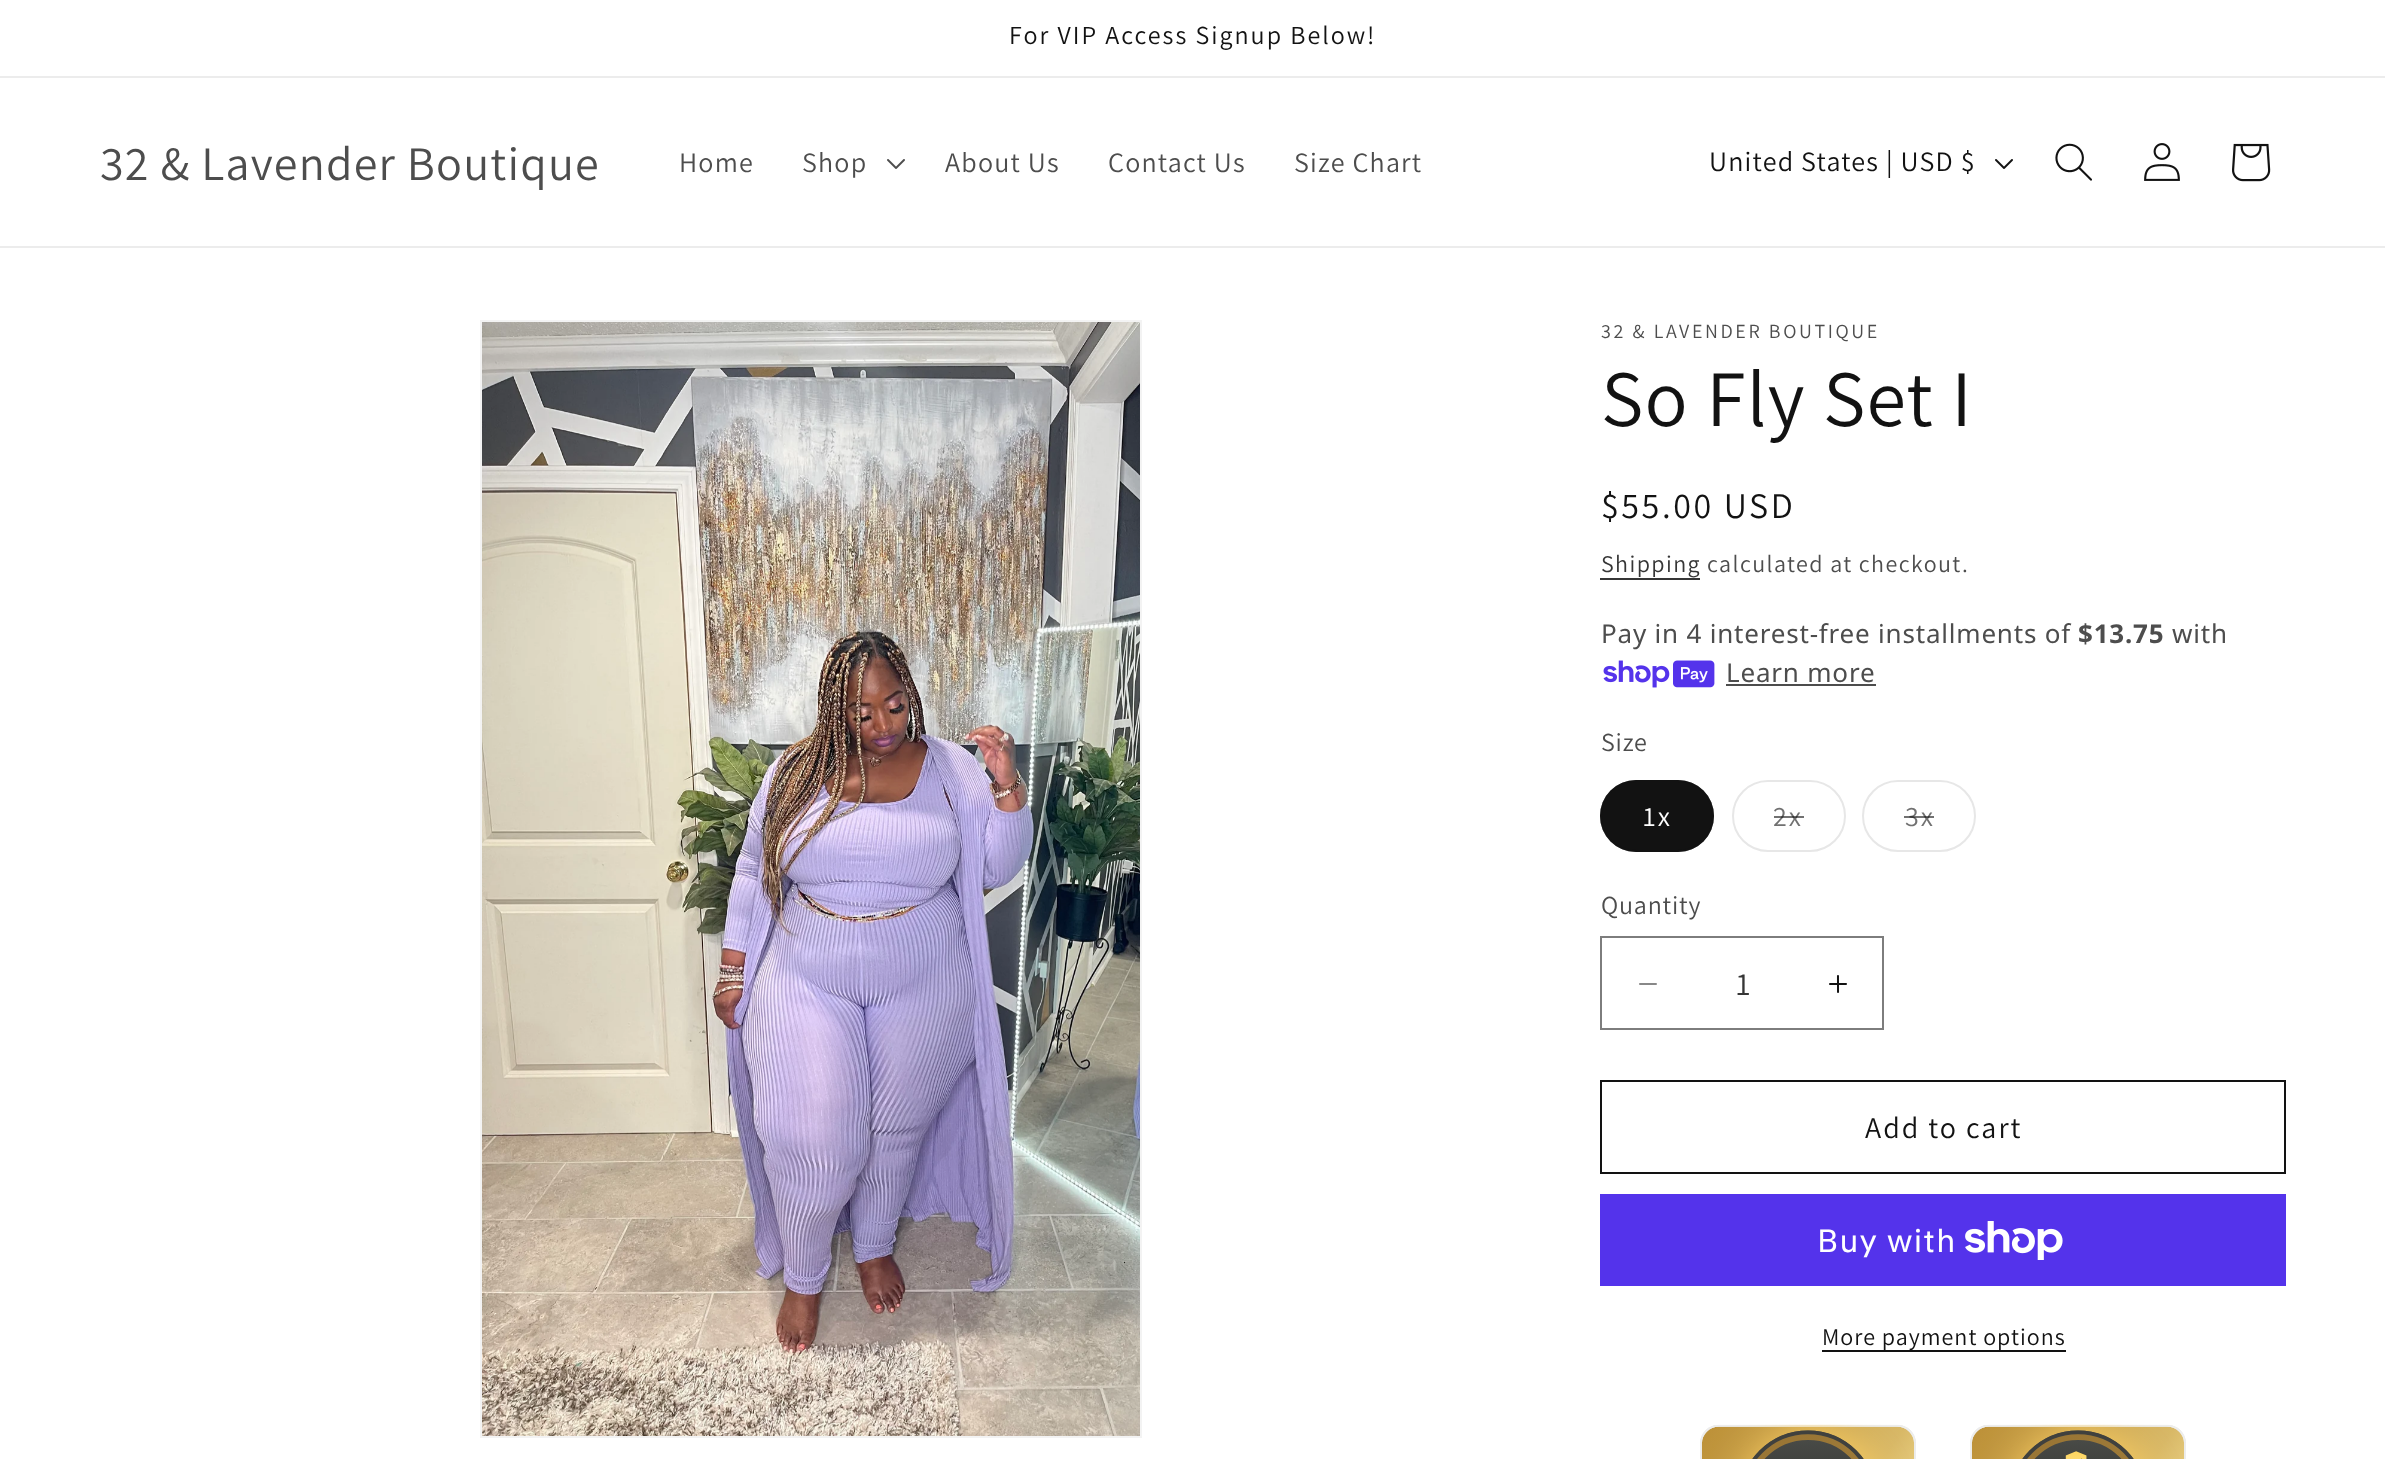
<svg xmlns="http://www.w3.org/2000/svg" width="2385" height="1459">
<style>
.a{font:26px Assistant;letter-spacing:2px;fill:#121212}
.b{font:48px Assistant;letter-spacing:1.2px;fill:#4d4d4d}
.c{font:28px Assistant;letter-spacing:1.2px;fill:#4d4d4d}
.d{font:28px Assistant;letter-spacing:1.2px;fill:#121212}
.e{font:20px Assistant;letter-spacing:2.6px;fill:#4d4d4d}
.f{font:80px Assistant;letter-spacing:1.2px;fill:#121212}
.g{font:36px Assistant;letter-spacing:2.6px;fill:#121212}
.h{font:24px Assistant;letter-spacing:1.4px;fill:#363636}
.i{font:24px Assistant;letter-spacing:1.4px;fill:#4d4d4d}
.j{font:26px Noto Sans;letter-spacing:0.8px;fill:#4d4d4d}
.k{font:bold 26px Noto Sans;letter-spacing:0.8px;fill:#4d4d4d}
.l{font:26px Assistant;letter-spacing:0.8px;fill:#4d4d4d}
.m{font:28px Assistant;letter-spacing:2px;fill:#fff}
.n{font:28px Assistant;letter-spacing:2px;fill:#717171}
.o{font:32px Assistant;fill:#363636}
.p{font:30px Assistant;letter-spacing:2px;fill:#121212}
.q{font:32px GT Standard;letter-spacing:1.2px;fill:#fff}
.r{font:24px Assistant;letter-spacing:1px;fill:#121212}
</style>
<rect width="100%" height="100%" fill="#fff"/>
<path fill="#ececec" d="M0 76h2385v2H0z"/>
<path fill="#ececec" d="M0 246h2385v2H0z"/>
<image href="1.png" x="887" y="159" width="18" height="10"/>
<image href="2.png" x="1995" y="159" width="18" height="10"/>
<image href="3.png" x="2055" y="143" width="37" height="38"/>
<image href="4.png" x="2144" y="143" width="36" height="38"/>
<image href="5.png" x="2232" y="143" width="39" height="39"/>
<path fill="none" stroke="#f3f3f3" stroke-width="2" d="M481 321h660v1116H481z"/>
<image href="6.png" x="482" y="322" width="658" height="1114"/>
<path fill="#363636" d="M1600 578h100v2H1600z"/>
<image href="7.png" x="1603" y="660" width="112" height="28"/>
<path fill="#4d4d4d" d="M1726 684h150v2H1726z"/>
<rect fill="#121212" x="1600" y="780" width="114" height="72" rx="36"/>
<rect fill="none" stroke="#1212128c" stroke-width="2" x="1601" y="781" width="112" height="70" rx="35"/>
<rect fill="none" stroke="#e7e7e7" stroke-width="2" x="1733" y="781" width="112" height="70" rx="35"/>
<rect fill="none" stroke="#e7e7e7" stroke-width="2" x="1863" y="781" width="112" height="70" rx="35"/>
<image href="8.png" x="1639" y="983" width="18" height="2"/>
<image href="9.png" x="1829" y="975" width="18" height="18"/>
<path fill="none" stroke="#7d7d7d" stroke-width="2" d="M1601 937h282v92H1601z"/>
<path fill="none" stroke="#121212" stroke-width="2" d="M1601 1081h684v92H1601z"/>
<path fill="#5433eb" d="M1600 1194h686v92H1600z"/>
<image href="10.png" x="1965" y="1221" width="98" height="39"/>
<path fill="#121212" d="M1822 1350h244v2H1822z"/>
<image href="11.png" x="1700" y="1424" width="486" height="35"/>
<text class="a" x="1009" y="44">For VIP Access Signup Below!</text>
<text class="b" x="100" y="180">32 &amp; Lavender Boutique</text>
<text class="c" x="679" y="172">Home</text>
<text class="c" x="802" y="172">Shop</text>
<text class="c" x="945" y="172">About Us</text>
<text class="c" x="1108" y="172">Contact Us</text>
<text class="c" x="1294" y="172">Size Chart</text>
<text class="d" x="1709" y="171">United States | USD $</text>
<text class="e" x="1601" y="338">32 &amp; LAVENDER BOUTIQUE</text>
<text class="f" x="1601" y="426">So Fly Set I</text>
<text class="g" x="1601" y="518">$55.00 USD</text>
<text class="h" x="1601" y="572">Shipping</text>
<text class="i" x="1707" y="572">calculated at checkout.</text>
<text class="j" x="1601" y="643">Pay in 4 interest-free installments of</text>
<text class="k" x="2078" y="643">$13.75</text>
<text class="j" x="2172" y="643">with</text>
<text class="j" x="1726" y="682">Learn more</text>
<text class="l" x="1601" y="751">Size</text>
<text class="m" x="1643" y="826">1x</text>
<text class="n" x="1773" y="826">2x</text>
<path fill="#12121299" d="M1774 816h30v2H1774z"/>
<text class="n" x="1905" y="826">3x</text>
<path fill="#12121299" d="M1904 816h30v2H1904z"/>
<text class="l" x="1601" y="914">Quantity</text>
<text class="o" x="1736" y="995">1</text>
<text class="p" x="1865" y="1138">Add to cart</text>
<text class="q" x="1817" y="1252">Buy with</text>
<text class="r" x="1822" y="1345">More payment options</text>
</svg>
